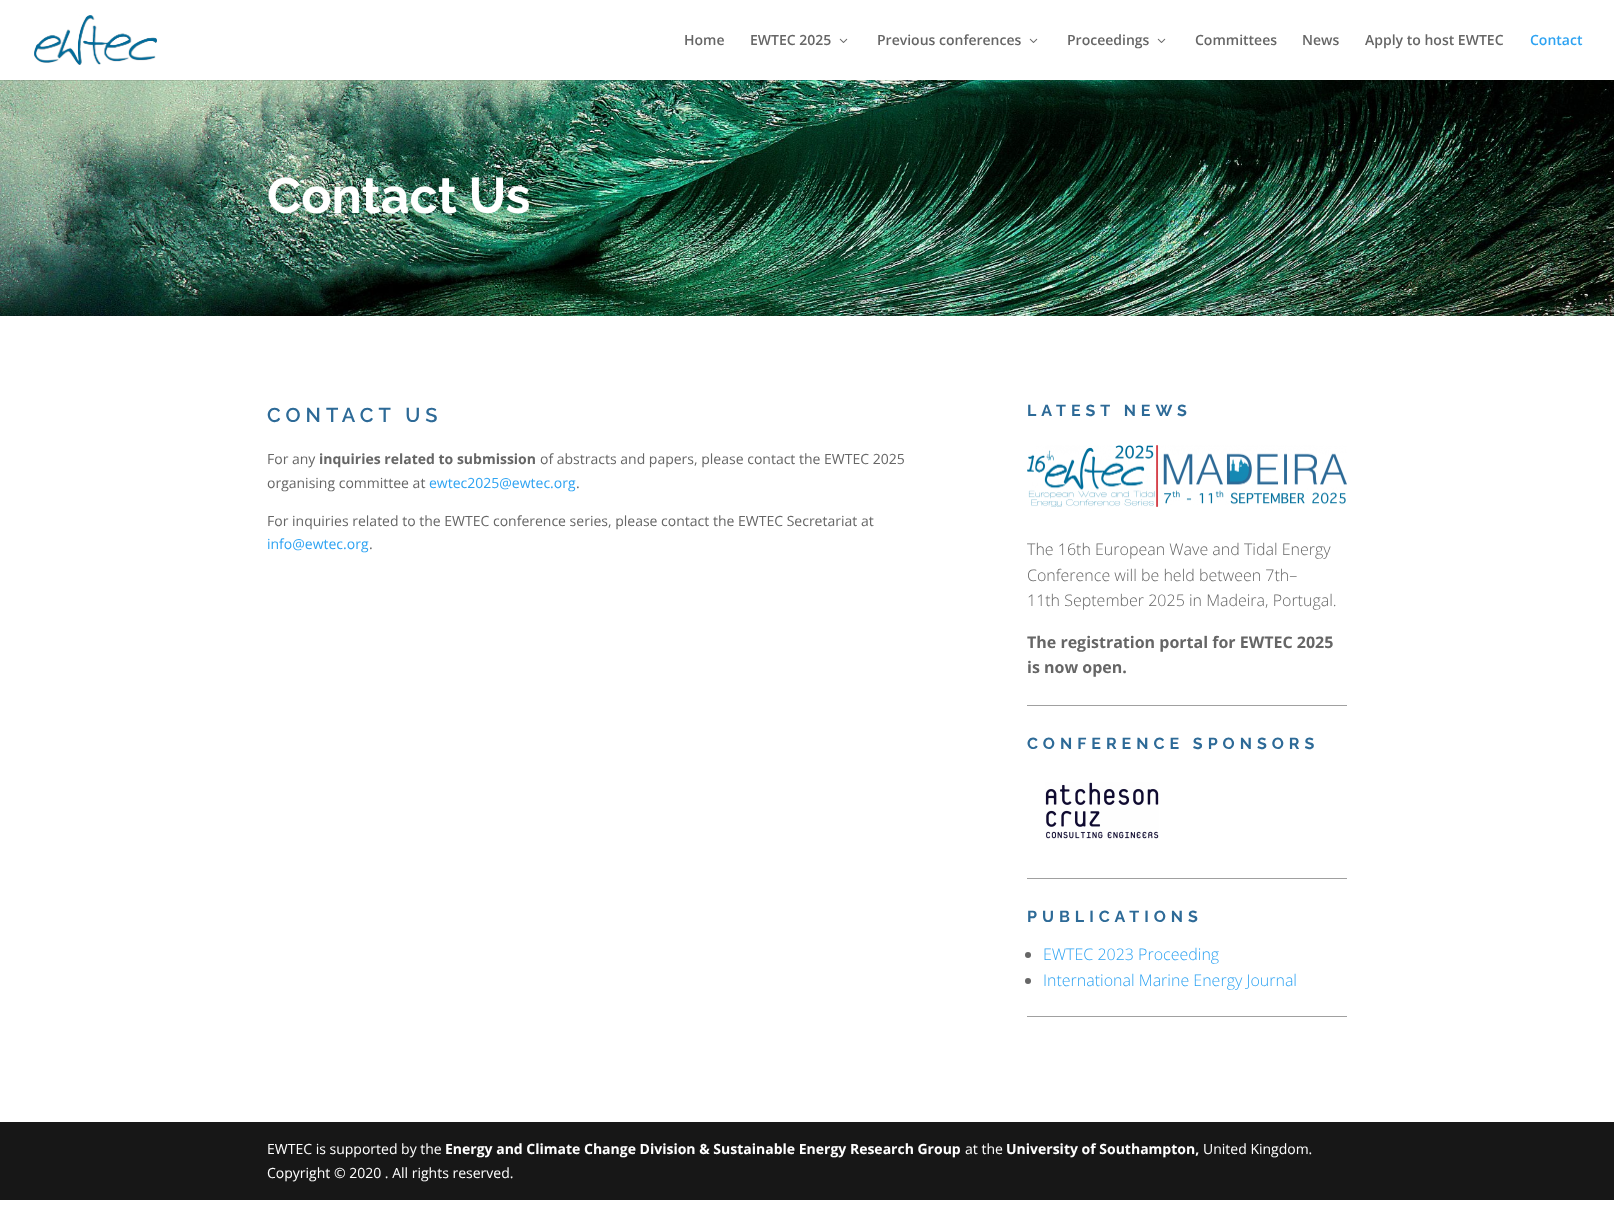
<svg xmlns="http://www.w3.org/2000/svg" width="1614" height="1220">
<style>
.a{font:600 14px Open Sans;fill:#666}
.b{font:600 14px Open Sans;fill:#2ea3f2}
.c{font:100 50px Raleway;fill:#fff}
.d{font:100 20px 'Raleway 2';letter-spacing:5px;fill:#2d6a97}
.e{font:14px Open Sans;fill:#666}
.f{font:bold 14px Open Sans;fill:#666}
.g{font:14px Open Sans;fill:#2ea3f2}
.h{font:100 16px Raleway;letter-spacing:5px;fill:#2d6a97}
.i{font:300 16px Open Sans;fill:#666}
.j{font:bold 16px Open Sans;fill:#666}
.k{font:300 16px Open Sans;fill:#2ea3f2}
.l{font:14px Open Sans;fill:#fff}
.m{font:bold 14px Open Sans;fill:#fff}
</style>
<rect width="100%" height="100%" fill="#fff"/>
<image href="3.png" x="0" y="80" width="1614" height="236"/>
<path fill="#0000001a" d="M0 80h1565v1H0z"/>
<image href="1.png" x="34" y="15" width="123" height="50"/>
<image href="2.png" x="839" y="38" width="9" height="5"/>
<image href="2.png" x="1029" y="38" width="9" height="5"/>
<image href="2.png" x="1157" y="38" width="9" height="5"/>
<image href="4.png" x="1027" y="445" width="320" height="62"/>
<path fill="#a0a0a0" d="M1027 705h320v1H1027z"/>
<image href="5.png" x="1045" y="782" width="114" height="57"/>
<path fill="#a0a0a0" d="M1027 878h320v1H1027z"/>
<circle fill="#666" cx="1028" cy="955" r="3"/>
<circle fill="#666" cx="1028" cy="981" r="3"/>
<path fill="#a0a0a0" d="M1027 1016h320v1H1027z"/>
<path fill="#171717" d="M0 1122h1614v78H0z"/>
<text class="a" x="684" y="45">Home</text>
<text class="a" x="750" y="45">EWTEC 2025</text>
<text class="a" x="877" y="45">Previous conferences</text>
<text class="a" x="1067" y="45">Proceedings</text>
<text class="a" x="1195" y="45">Committees</text>
<text class="a" x="1302" y="45">News</text>
<text class="a" x="1365" y="45">Apply to host EWTEC</text>
<text class="b" x="1530" y="45">Contact</text>
<text class="c" x="267" y="213">Contact Us</text>
<text class="d" x="267" y="422">CONTACT US</text>
<text class="e" x="267" y="464">For any</text>
<text class="f" x="319" y="464">inquiries related to submission</text>
<text class="e" x="540" y="464">of abstracts and papers, please contact the EWTEC 2025</text>
<text class="e" x="267" y="488">organising committee at</text>
<text class="g" x="429" y="488">ewtec2025@ewtec.org</text>
<text class="e" x="576" y="488">.</text>
<text class="e" x="267" y="526">For inquiries related to the EWTEC conference series, please contact the EWTEC Secretariat at</text>
<text class="g" x="267" y="549">info@ewtec.org</text>
<text class="e" x="369" y="549">.</text>
<text class="h" x="1027" y="416">LATEST NEWS</text>
<text class="i" x="1027" y="555">The 16th European Wave and Tidal Energy</text>
<text class="i" x="1027" y="581">Conference will be held between 7th–</text>
<text class="i" x="1027" y="606">11th September 2025 in Madeira, Portugal.</text>
<text class="j" x="1027" y="648">The registration portal for EWTEC 2025</text>
<text class="j" x="1027" y="673">is now open.</text>
<text class="h" x="1027" y="749">CONFERENCE SPONSORS</text>
<text class="h" x="1027" y="922">PUBLICATIONS</text>
<text class="k" x="1043" y="960">EWTEC 2023 Proceeding</text>
<text class="k" x="1043" y="986">International Marine Energy Journal</text>
<text class="l" x="267" y="1154">EWTEC is supported by the</text>
<text class="m" x="445" y="1154">Energy and Climate Change Division &amp; Sustainable Energy Research Group</text>
<text class="l" x="965" y="1154">at the</text>
<text class="m" x="1006" y="1154">University of Southampton,</text>
<text class="l" x="1203" y="1154">United Kingdom.</text>
<text class="l" x="267" y="1178">Copyright © 2020 . All rights reserved.</text>
</svg>
